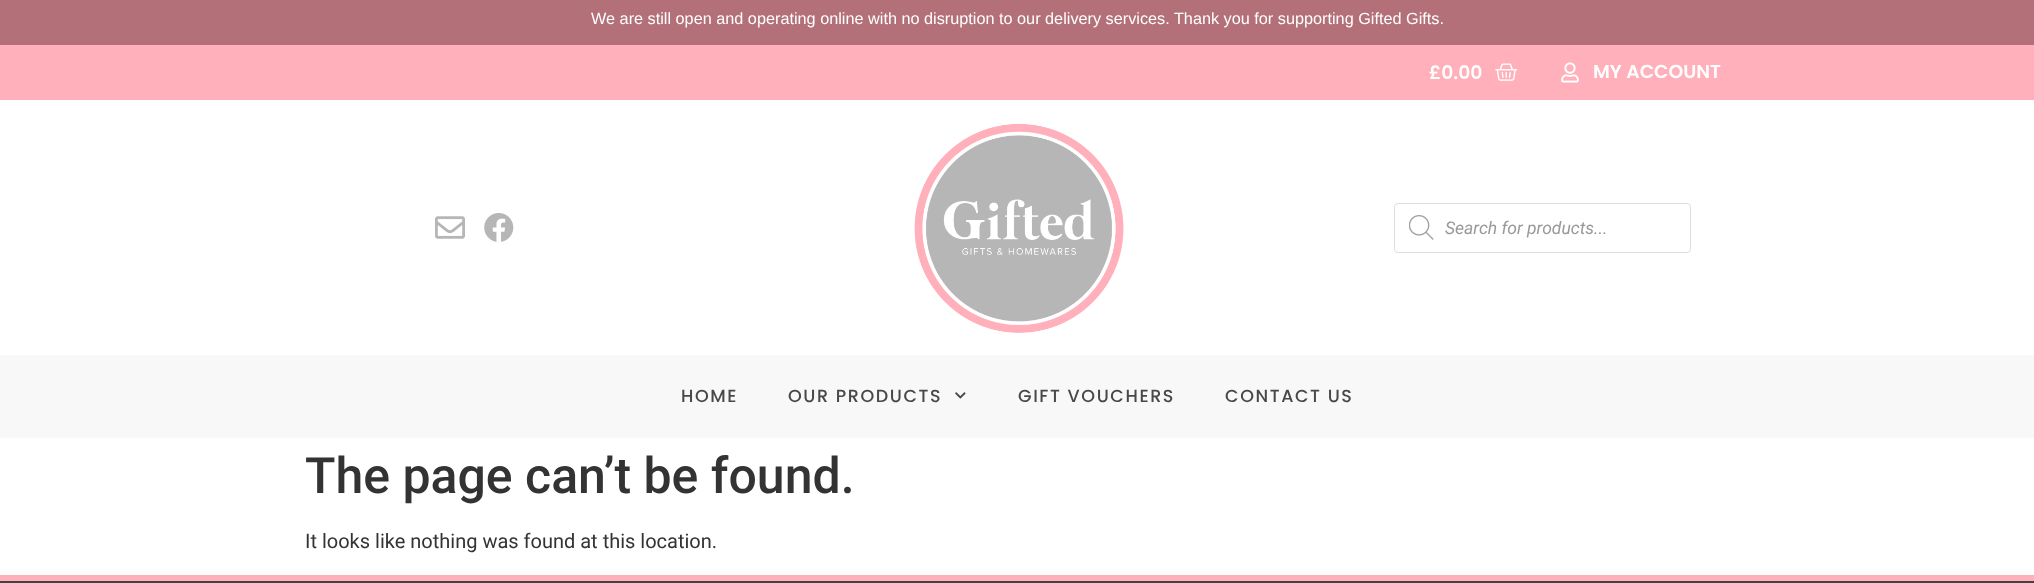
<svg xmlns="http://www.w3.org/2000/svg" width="2034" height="583">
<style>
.a{font:16.25px Liberation Sans;fill:#fff}
.b{font:600 18.75px Poppins;fill:#fff}
.c{font:italic 17.5px Roboto;fill:#999}
.d{font:500 17.5px Poppins;letter-spacing:1.6px;fill:#484848}
.e{font:500 50px Roboto;fill:#333}
.f{font:20px Roboto;fill:#333}
</style>
<rect width="100%" height="100%" fill="#fff"/>
<path fill="#b47079" d="M0 0h2034v45H0z"/>
<path fill="#ffb0bb" d="M0 45h2034v55H0z"/>
<image href="1.png" x="1495" y="63" width="23" height="18"/>
<image href="2.png" x="1561" y="62" width="18" height="21"/>
<image href="3.png" x="435" y="216" width="30" height="23"/>
<image href="4.png" x="484" y="213" width="30" height="29"/>
<image href="5.png" x="914" y="123" width="210" height="210"/>
<rect fill="none" stroke="#ddd" x="1394.5" y="203.5" width="296" height="49" rx="3.5"/>
<image href="6.png" x="1409" y="215" width="25" height="25"/>
<path fill="#f8f8f8" d="M0 355h2034v83H0z"/>
<image href="7.png" x="955" y="392" width="11" height="7"/>
<path fill="#414141" d="M0 581h2034v2H0z"/>
<path fill="#ffb0bb" d="M0 575h2034v6H0z"/>
<text class="a" x="591" y="24">We are still open and operating online with no disruption to our delivery services. Thank you for supporting Gifted Gifts.</text>
<text class="b" x="1429" y="79">£0.00</text>
<text class="b" x="1593" y="78">MY ACCOUNT</text>
<text class="c" x="1445" y="234">Search for products...</text>
<text class="d" x="681" y="402">HOME</text>
<text class="d" x="788" y="402">OUR PRODUCTS</text>
<text class="d" x="1018" y="402">GIFT VOUCHERS</text>
<text class="d" x="1225" y="402">CONTACT US</text>
<text class="e" x="305" y="493">The page can’t be found.</text>
<text class="f" x="305" y="548">It looks like nothing was found at this location.</text>
</svg>
